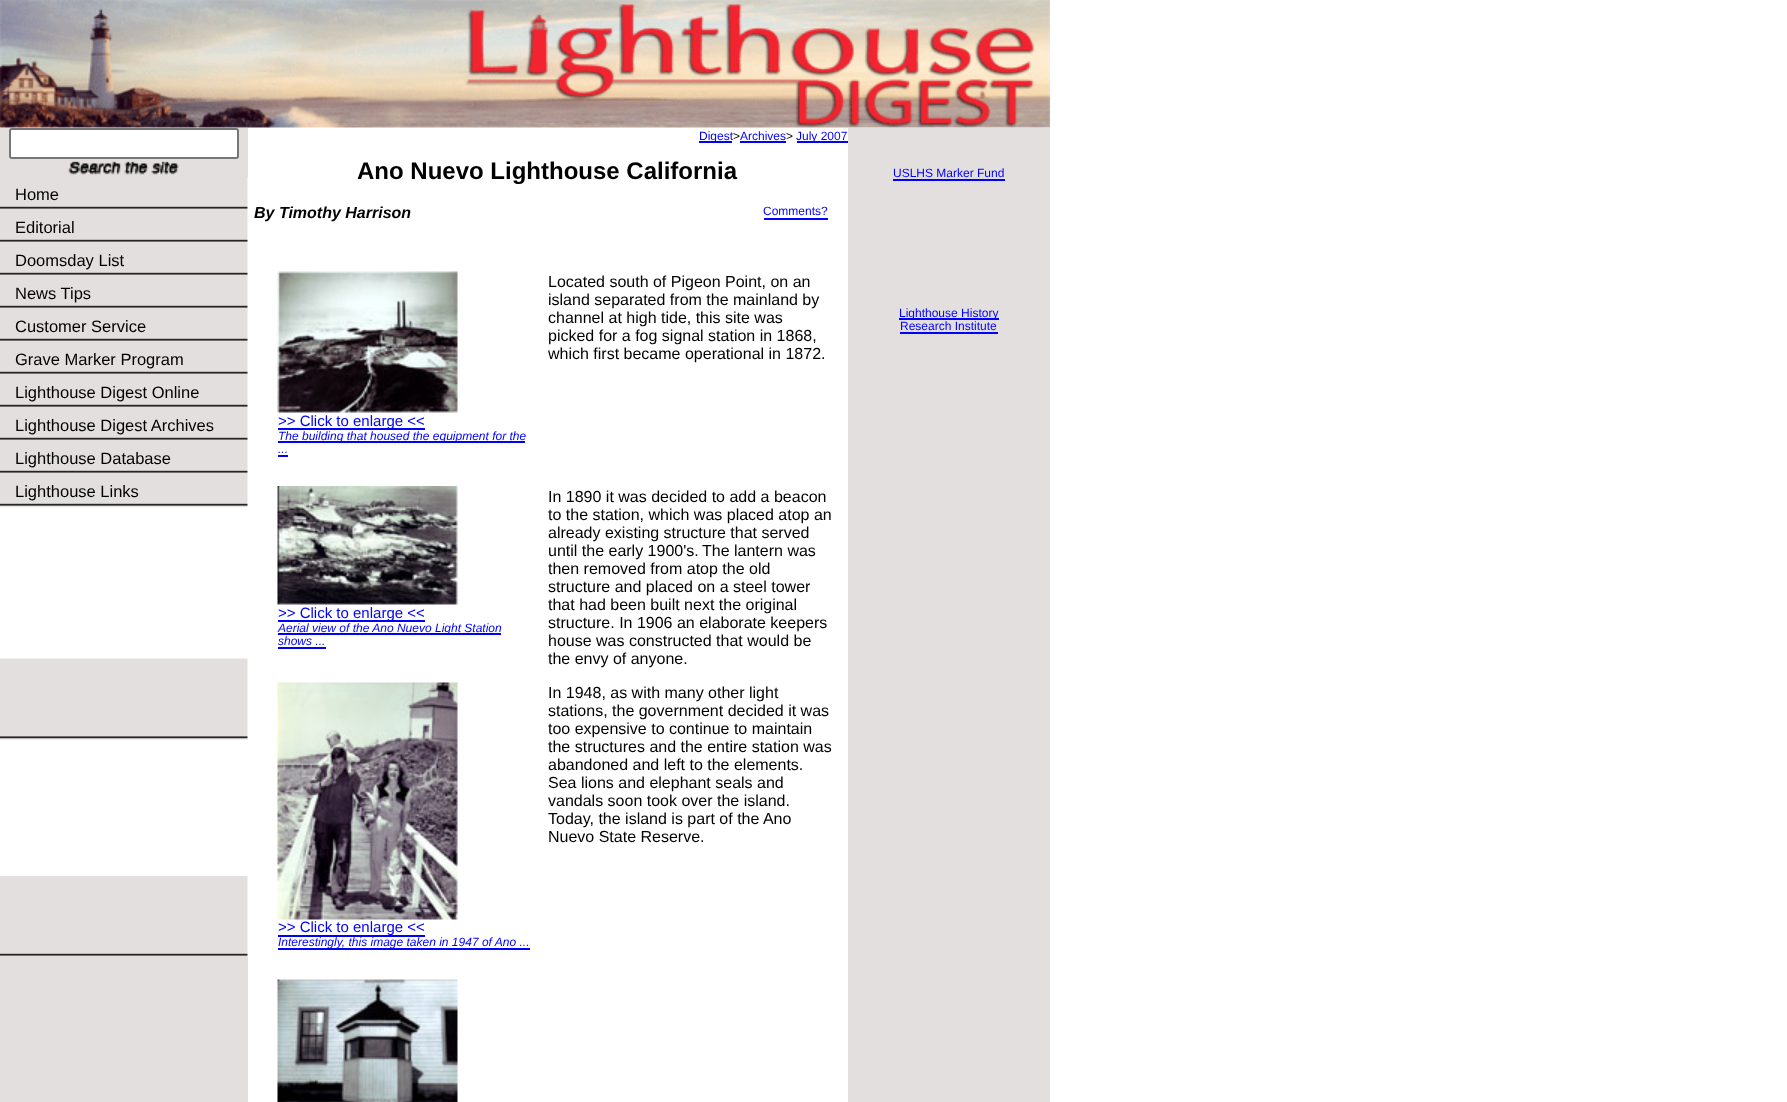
<svg xmlns="http://www.w3.org/2000/svg" width="1787" height="1102">
<style>
.a{font:16.5px Liberation Sans;fill:#000}
.b{font:12px Liberation Sans;fill:#00f}
.c{font:12px Liberation Sans;fill:#000}
.d{font:bold 24px Liberation Sans;fill:#000}
.e{font:italic bold 16px Liberation Sans;fill:#000}
.f{font:16px Liberation Sans;fill:#000}
.g{font:15px Liberation Sans;fill:#00f}
.h{font:italic 12px Liberation Sans;fill:#00f}
</style>
<rect width="100%" height="100%" fill="#fff"/>
<image href="1.png" x="0" y="0" width="1050" height="128"/>
<path fill="#e4dfdf" d="M0 128h248v974H0z"/>
<rect fill="#fff" stroke="#767676" stroke-width="2" x="10" y="129" width="228" height="29" rx="2"/>
<image href="2.png" x="68" y="161" width="111" height="14"/>
<path fill="#fff" d="M247 177h1v330H247z"/>
<image href="3.png" x="0" y="177" width="248" height="33"/>
<image href="3.png" x="0" y="210" width="248" height="33"/>
<image href="3.png" x="0" y="243" width="248" height="33"/>
<image href="3.png" x="0" y="276" width="248" height="33"/>
<image href="3.png" x="0" y="309" width="248" height="33"/>
<image href="3.png" x="0" y="342" width="248" height="33"/>
<image href="3.png" x="0" y="375" width="248" height="33"/>
<image href="3.png" x="0" y="408" width="248" height="33"/>
<image href="3.png" x="0" y="441" width="248" height="33"/>
<image href="3.png" x="0" y="474" width="248" height="33"/>
<path fill="#fff" d="M0 507h248v450H0z"/>
<image href="4.png" x="0" y="658" width="248" height="82"/>
<image href="5.png" x="0" y="876" width="248" height="81"/>
<path fill="#00f" d="M699 141h33v2H699z"/>
<path fill="#00f" d="M740 141h46v2H740z"/>
<path fill="#00f" d="M797 141h51v2H797z"/>
<path fill="#00f" d="M764 218h64v2H764z"/>
<image href="6.png" x="277" y="486" width="181" height="119"/>
<path fill="#00f" d="M278 620h147v2H278z"/>
<path fill="#00f" d="M278 633h223v2H278z"/>
<path fill="#00f" d="M278 647h48v2H278z"/>
<image href="7.png" x="277" y="271" width="181" height="142"/>
<path fill="#00f" d="M278 428h147v2H278z"/>
<path fill="#00f" d="M278 441h247v2H278z"/>
<path fill="#00f" d="M278 455h10v2H278z"/>
<image href="8.png" x="277" y="682" width="181" height="238"/>
<path fill="#00f" d="M278 935h147v2H278z"/>
<path fill="#00f" d="M278 948h252v2H278z"/>
<image href="9.png" x="277" y="979" width="181" height="123"/>
<path fill="#e4dfdf" d="M848 128h202v974H848z"/>
<path fill="#00f" d="M893 179h112v2H893z"/>
<path fill="#00f" d="M899 318h100v2H899z"/>
<path fill="#00f" d="M900 332h98v2H900z"/>
<text class="a" x="15" y="200">Home</text>
<text class="a" x="15" y="233">Editorial</text>
<text class="a" x="15" y="266">Doomsday List</text>
<text class="a" x="15" y="299">News Tips</text>
<text class="a" x="15" y="332">Customer Service</text>
<text class="a" x="15" y="365">Grave Marker Program</text>
<text class="a" x="15" y="398">Lighthouse Digest Online</text>
<text class="a" x="15" y="431">Lighthouse Digest Archives</text>
<text class="a" x="15" y="464">Lighthouse Database</text>
<text class="a" x="15" y="497">Lighthouse Links</text>
<text class="b" x="699" y="140">Digest</text>
<text class="c" x="733" y="140">&gt;</text>
<text class="b" x="740" y="140">Archives</text>
<text class="c" x="786" y="140">&gt;</text>
<text class="b" x="796" y="140">July 2007</text>
<text class="d" x="357" y="179">Ano Nuevo Lighthouse California</text>
<text class="e" x="254" y="218">By Timothy Harrison</text>
<text class="b" x="763" y="215">Comments?</text>
<text class="f" x="548" y="287">Located south of Pigeon Point, on an</text>
<text class="f" x="548" y="305">island separated from the mainland by</text>
<text class="f" x="548" y="323">channel at high tide, this site was</text>
<text class="f" x="548" y="341">picked for a fog signal station in 1868,</text>
<text class="f" x="548" y="359">which first became operational in 1872.</text>
<text class="g" x="278" y="618">&gt;&gt; Click to enlarge &lt;&lt;</text>
<text class="h" x="278" y="632">Aerial view of the Ano Nuevo Light Station</text>
<text class="h" x="278" y="645">shows ...</text>
<text class="g" x="278" y="426">&gt;&gt; Click to enlarge &lt;&lt;</text>
<text class="h" x="278" y="440">The building that housed the equipment for the</text>
<text class="h" x="278" y="453">...</text>
<text class="f" x="548" y="502">In 1890 it was decided to add a beacon</text>
<text class="f" x="548" y="520">to the station, which was placed atop an</text>
<text class="f" x="548" y="538">already existing structure that served</text>
<text class="f" x="548" y="556">until the early 1900's.</text>
<text class="f" x="702" y="556">The lantern was</text>
<text class="f" x="548" y="574">then removed from atop the old</text>
<text class="f" x="548" y="592">structure and placed on a steel tower</text>
<text class="f" x="548" y="610">that had been built next the original</text>
<text class="f" x="548" y="628">structure. In 1906 an elaborate keepers</text>
<text class="f" x="548" y="646">house was constructed that would be</text>
<text class="f" x="548" y="664">the envy of anyone.</text>
<text class="g" x="278" y="932">&gt;&gt; Click to enlarge &lt;&lt;</text>
<text class="h" x="278" y="946">Interestingly, this image taken in 1947 of Ano ...</text>
<text class="f" x="548" y="698">In 1948, as with many other light</text>
<text class="f" x="548" y="716">stations, the government decided it was</text>
<text class="f" x="548" y="734">too expensive to continue to maintain</text>
<text class="f" x="548" y="752">the structures and the entire station was</text>
<text class="f" x="548" y="770">abandoned and left to the elements.</text>
<text class="f" x="548" y="788">Sea lions and elephant seals and</text>
<text class="f" x="548" y="806">vandals soon took over the island.</text>
<text class="f" x="548" y="824">Today, the island is part of the Ano</text>
<text class="f" x="548" y="842">Nuevo State Reserve.</text>
<text class="b" x="893" y="177">USLHS Marker Fund</text>
<text class="b" x="899" y="317">Lighthouse History</text>
<text class="b" x="900" y="330">Research Institute</text>
</svg>
